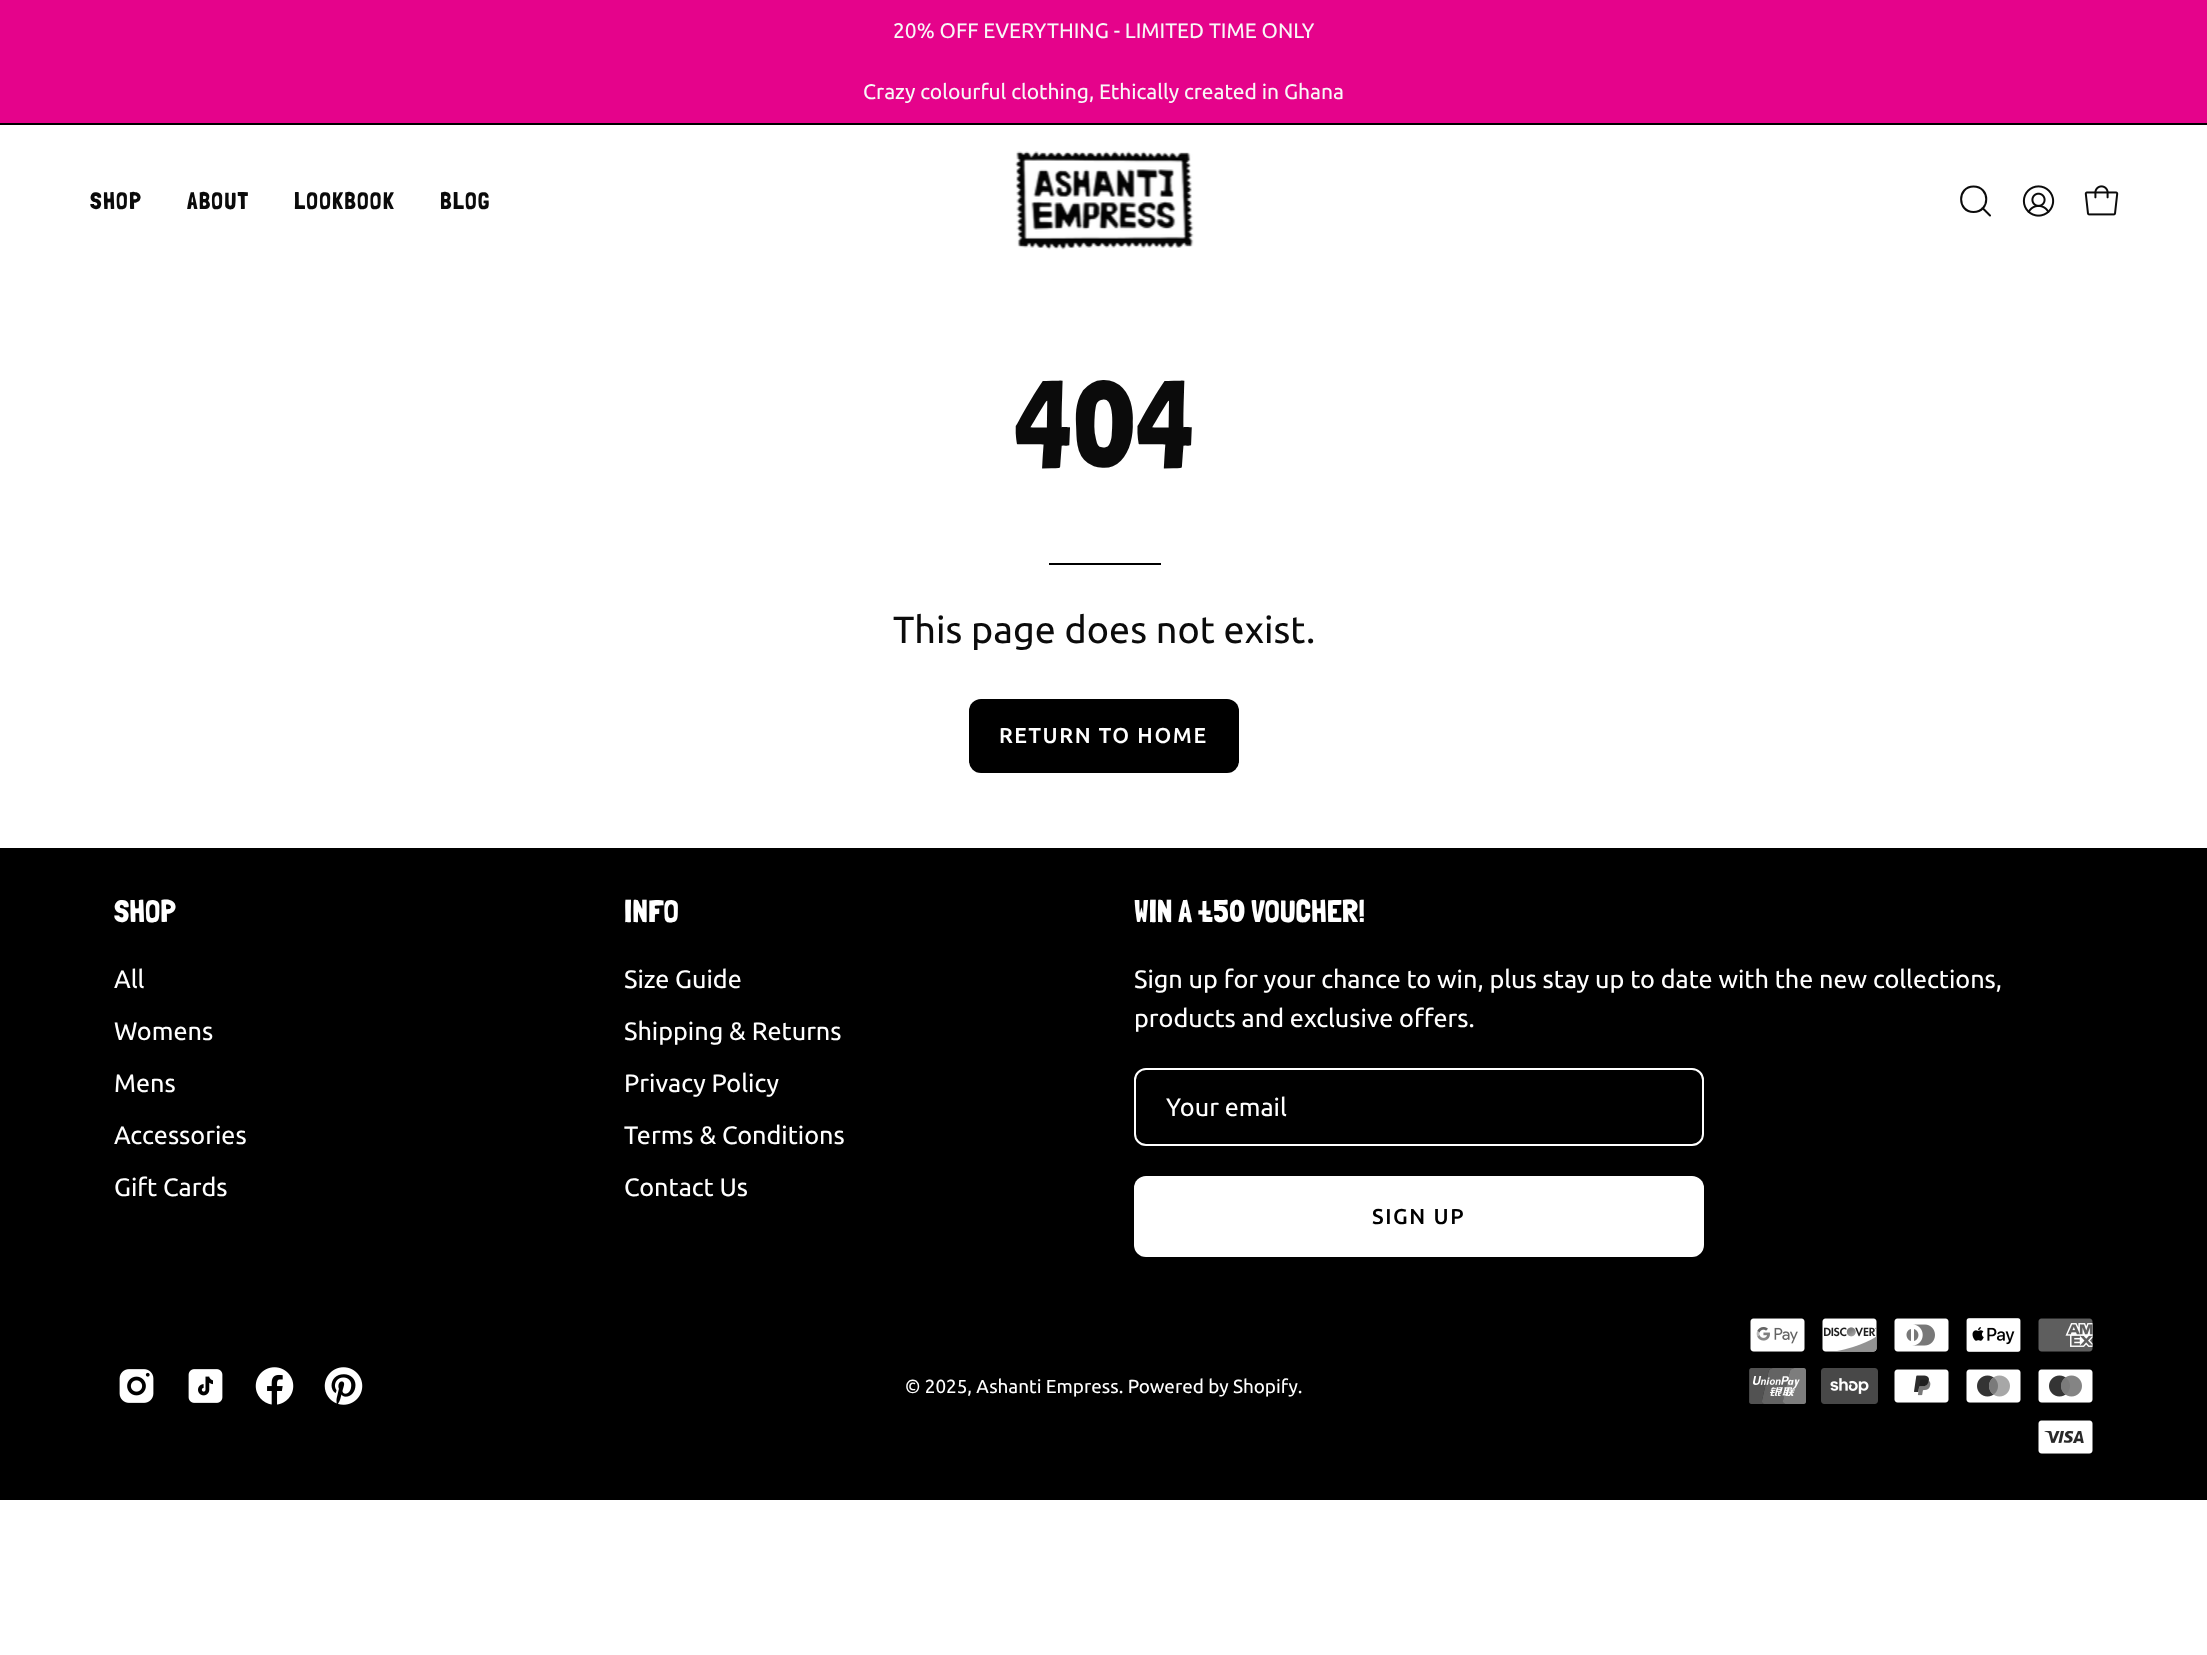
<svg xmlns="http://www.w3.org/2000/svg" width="2207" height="1655">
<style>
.a{font:21px Ubuntu;fill:#f8f8f8}
.b{font:24px Londrina Solid;letter-spacing:1.25px;fill:#0b0b0b}
.c{font:124px Londrina Solid;fill:#0b0b0b}
.d{font:37.75px Ubuntu;fill:#0b0b0b}
.e{font:500 21.5px Ubuntu;letter-spacing:1.6px;fill:#fff}
.f{font:31.5px Londrina Solid;fill:#fff}
.g{font:25.2px Ubuntu;fill:#fff}
.h{font:500 21.5px Ubuntu;letter-spacing:1.6px;fill:#000}
.i{font:18.9px Ubuntu;fill:#fff}
</style>
<rect width="100%" height="100%" fill="#fff"/>
<path fill="#e5038b" d="M0 0h2207v123H0z"/>
<path fill="#000" d="M0 123h2207v2H0z"/>
<path fill="none" stroke="#0b0b0b" stroke-width="2" stroke-linecap="round" stroke-linejoin="round" d="M1973.5 212c17 0 17-25.5 0-25.5c-16.5 0-16.5 25.5 0 25.5zm9-4l7.5 7.5"/>
<image href="1.png" x="2022" y="185" width="33" height="32"/>
<image href="2.png" x="2084" y="185" width="35" height="31"/>
<image href="3.png" x="1015" y="151" width="179" height="99"/>
<path fill="#000" d="M1049 563h112v2H1049z"/>
<rect fill="#000" x="969" y="699" width="270" height="74" rx="12"/>
<path fill="#000" d="M0 848h2207v652H0z"/>
<rect fill="none" stroke="#fff" stroke-width="2" x="1135" y="1069" width="568" height="76" rx="11"/>
<rect fill="#fff" x="1134" y="1176" width="570" height="81" rx="12"/>
<image href="4.png" x="119" y="1369" width="35" height="34"/>
<image href="5.png" x="188" y="1369" width="35" height="34"/>
<image href="6.png" x="255" y="1367" width="39" height="38"/>
<image href="7.png" x="324" y="1367" width="39" height="38"/>
<image href="8.png" x="1750" y="1318" width="55" height="34"/>
<image href="9.png" x="1822" y="1318" width="55" height="34"/>
<image href="10.png" x="1894" y="1318" width="55" height="34"/>
<image href="11.png" x="1966" y="1318" width="55" height="34"/>
<image href="12.png" x="2038" y="1318" width="55" height="34"/>
<image href="13.png" x="1749" y="1368" width="57" height="36"/>
<image href="14.png" x="1821" y="1368" width="57" height="36"/>
<image href="15.png" x="1894" y="1369" width="55" height="34"/>
<image href="16.png" x="1966" y="1369" width="55" height="34"/>
<image href="17.png" x="2038" y="1369" width="55" height="34"/>
<image href="18.png" x="2038" y="1420" width="55" height="34"/>
<text class="a" x="893" y="38">20% OFF EVERYTHING - LIMITED TIME ONLY</text>
<text class="a" x="863" y="99">Crazy colourful clothing, Ethically created in Ghana</text>
<text class="b" x="90" y="209">SHOP</text>
<text class="b" x="187" y="209">ABOUT</text>
<text class="b" x="294" y="209">LOOKBOOK</text>
<text class="b" x="440" y="209">BLOG</text>
<text class="c" x="1014" y="468">404</text>
<text class="d" x="893" y="643">This page does not exist.</text>
<text class="e" x="999" y="743">RETURN TO HOME</text>
<text class="f" x="114" y="922">SHOP</text>
<text class="g" x="114" y="988">All</text>
<text class="g" x="114" y="1040">Womens</text>
<text class="g" x="114" y="1092">Mens</text>
<text class="g" x="114" y="1144">Accessories</text>
<text class="g" x="114" y="1196">Gift Cards</text>
<text class="f" x="624" y="922">INFO</text>
<text class="g" x="624" y="988">Size Guide</text>
<text class="g" x="624" y="1040">Shipping &amp; Returns</text>
<text class="g" x="624" y="1092">Privacy Policy</text>
<text class="g" x="624" y="1144">Terms &amp; Conditions</text>
<text class="g" x="624" y="1196">Contact Us</text>
<text class="f" x="1134" y="922">WIN A £50 VOUCHER!</text>
<text class="g" x="1134" y="988">Sign up for your chance to win, plus stay up to date with the new collections,</text>
<text class="g" x="1134" y="1027">products and exclusive offers.</text>
<text class="g" x="1166" y="1116">Your email</text>
<text class="h" x="1372" y="1224">SIGN UP</text>
<text class="i" x="905" y="1393">© 2025, Ashanti Empress. Powered by Shopify.</text>
</svg>
